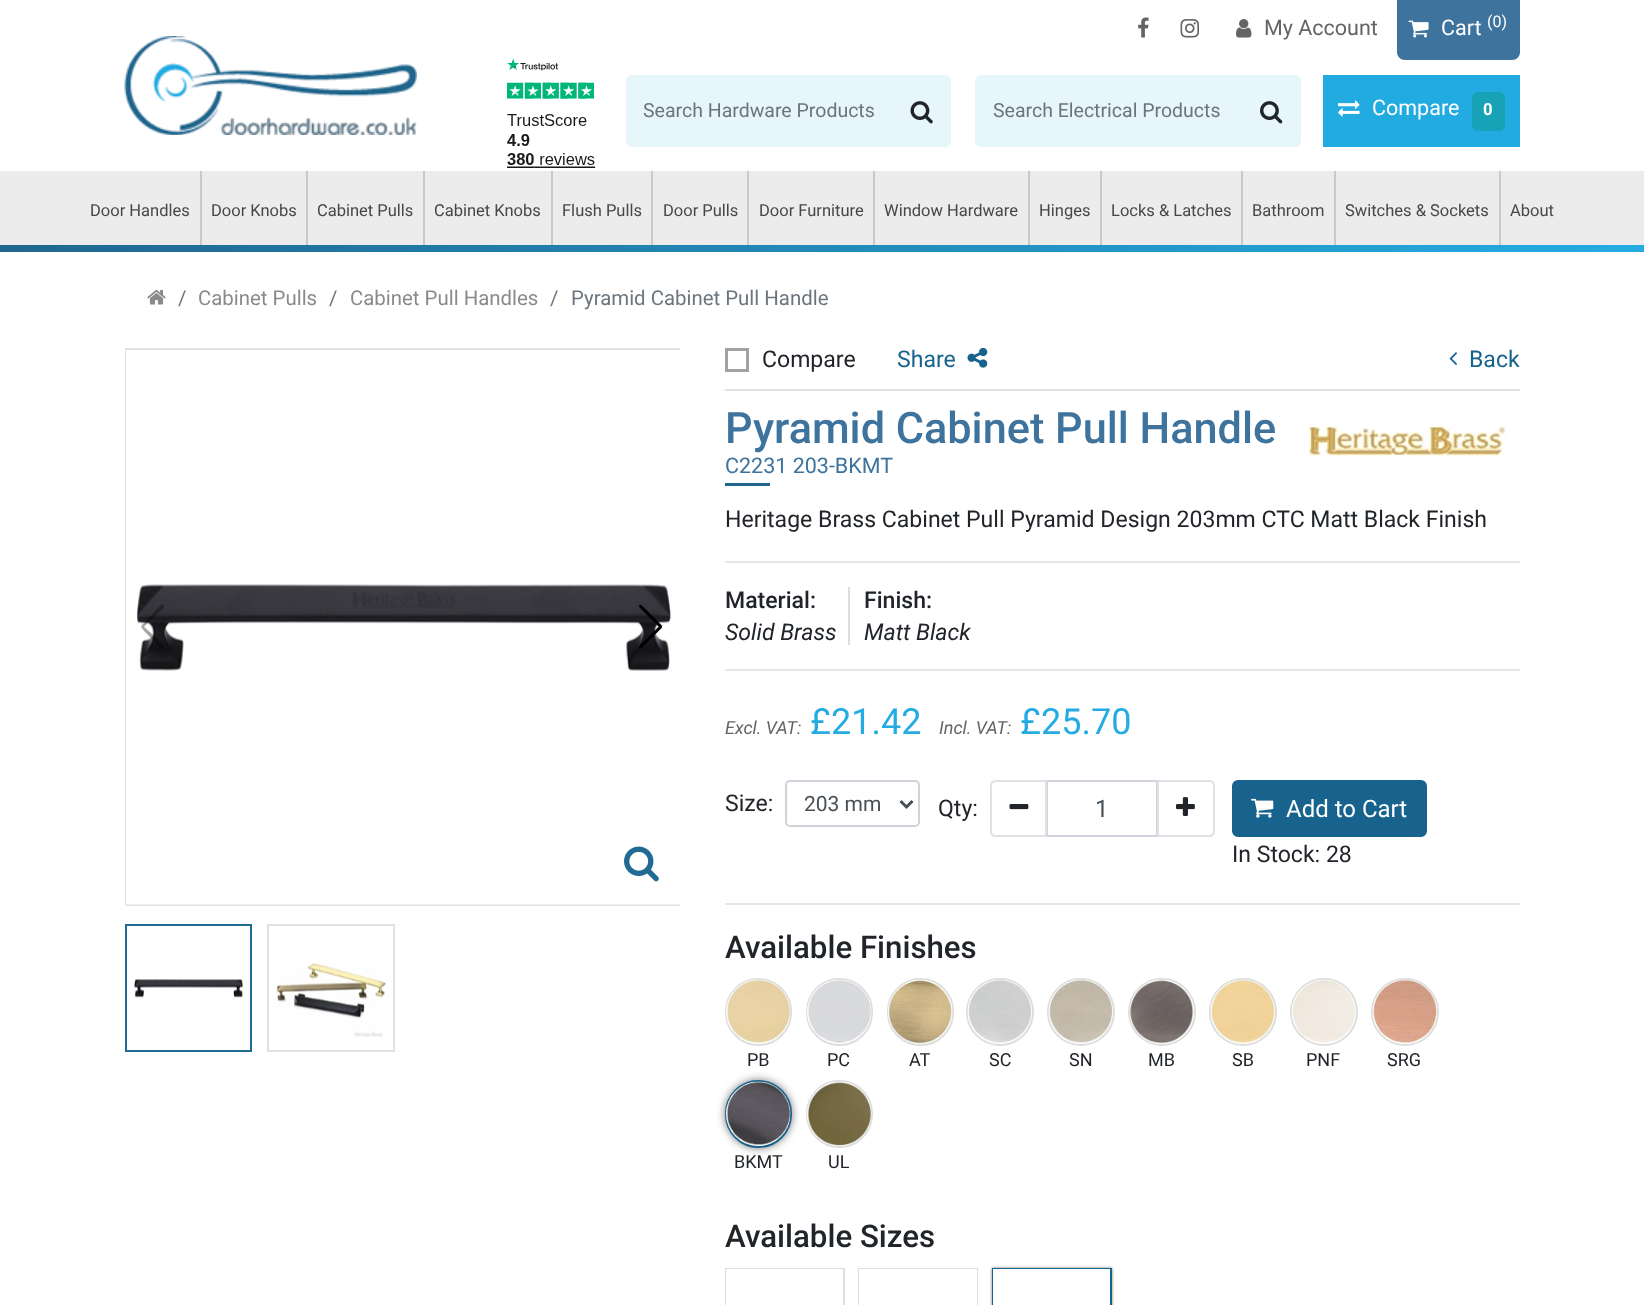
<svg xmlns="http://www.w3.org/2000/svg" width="1644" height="1305">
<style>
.a{font:21.5px Roboto;fill:#646464}
.b{font:21.5px Roboto;fill:#fff}
.c{font:16px Roboto;fill:#fff}
.d{font:19.5px Roboto;fill:#6c757d}
.e{font:bold 16px Roboto;fill:#fff}
.f{font:16.5px Roboto;fill:#474747}
.g{font:20.4px Roboto;fill:#6c757d}
.h{font:20.4px Roboto;fill:#8a8a8a}
.i{font:23.05px Roboto;fill:#212529}
.j{font:23.05px Roboto;fill:#17638e}
.k{font:500 43.25px Roboto;fill:#3e739d}
.l{font:21.5px Roboto;fill:#3e739d}
.m{font:500 23.05px Roboto;fill:#212529}
.n{font:italic 23.05px Roboto;fill:#212529}
.o{font:italic 18px Roboto;fill:#646464}
.p{font:36px Roboto;fill:#24ace2}
.q{font:21px Roboto;fill:#495057}
.r{font:24px Roboto;fill:#495057}
.s{font:24px Roboto;fill:#fff}
.t{font:500 31.25px Roboto;fill:#212529}
.u{font:18px Roboto;fill:#212529}
</style>
<defs>
<linearGradient id="g1" gradientUnits="userSpaceOnUse" x1="0" y1="248" x2="1644" y2="248"><stop offset="0" stop-color="#206790"/><stop offset="1" stop-color="#24ace2"/></linearGradient>
<clipPath id="clip1"><path d="M125 342h555v570H125z"/></clipPath>
</defs>
<rect width="100%" height="100%" fill="#fff"/>
<image href="1.png" x="124" y="36" width="293" height="99"/>
<image href="2.png" x="1138" y="17" width="11" height="21"/>
<image href="3.png" x="1180" y="19" width="19" height="19"/>
<image href="4.png" x="1236" y="19" width="16" height="19"/>
<path fill="#3e739d" d="M1397 0h123v52c0 4.5-3.5 8-8 8h-107c-4.5 0-8-3.5-8-8z"/>
<image href="5.png" x="1408" y="20" width="21" height="18"/>
<image href="6.png" x="507" y="58" width="89" height="110"/>
<path fill="#e6f6fb" d="M632 75h262v72h-262c-3.5 0-6-2.5-6-6v-60c0-3.5 2.5-6 6-6z"/>
<path fill="#e6f6fb" d="M893 75h52c3.5 0 6 2.5 6 6v60c0 3.5-2.5 6-6 6h-52z"/>
<image href="7.png" x="910" y="101" width="23" height="23"/>
<path fill="#e6f6fb" d="M981 75h263v72h-263c-3.5 0-6-2.5-6-6v-60c0-3.5 2.5-6 6-6z"/>
<path fill="#e6f6fb" d="M1242 75h53c3.5 0 6 2.5 6 6v60c0 3.5-2.5 6-6 6h-53z"/>
<image href="8.png" x="1260" y="101" width="23" height="23"/>
<path fill="#21abe1" d="M1323 75h197v72H1323z"/>
<image href="9.png" x="1338" y="100" width="22" height="17"/>
<rect fill="#17a2b8" x="1472" y="92" width="33" height="39" rx="6"/>
<path fill="#ececec" d="M0 171h1644v74H0z"/>
<path fill="#c9c9c9" d="M200 171h2v81H200z"/>
<path fill="#c9c9c9" d="M306 171h2v81H306z"/>
<path fill="#c9c9c9" d="M423 171h2v81H423z"/>
<path fill="#c9c9c9" d="M551 171h2v81H551z"/>
<path fill="#c9c9c9" d="M651 171h2v81H651z"/>
<path fill="#c9c9c9" d="M747 171h2v81H747z"/>
<path fill="#c9c9c9" d="M873 171h2v81H873z"/>
<path fill="#c9c9c9" d="M1028 171h2v81H1028z"/>
<path fill="#c9c9c9" d="M1100 171h2v81H1100z"/>
<path fill="#c9c9c9" d="M1241 171h2v81H1241z"/>
<path fill="#c9c9c9" d="M1334 171h2v81H1334z"/>
<path fill="#c9c9c9" d="M1499 171h2v81H1499z"/>
<path fill="url(#g1)" d="M0 245h1644v7H0z"/>
<image href="10.png" x="147" y="289" width="19" height="16"/>
<g clip-path="url(#clip1)">
<path fill="none" stroke="#dee2e6" stroke-width="2" d="M126 349h556v556H126z"/>
</g>
<image href="11.png" x="126" y="350" width="554" height="555"/>
<image href="12.png" x="624" y="846" width="35" height="36"/>
<path fill="#00000059" d="M161 605c1-1 3 0 3 1c0 2-17 18-20 21c3 2 21 19 20 20c-1 4-4 0-6-2l-13-13c-5-6-5-5 0-10z"/>
<image href="13.png" x="639" y="604" width="23" height="45"/>
<path fill="none" stroke="#206a94" stroke-width="2" d="M126 925h125v126H126z"/>
<image href="14.png" x="134" y="979" width="109" height="19"/>
<path fill="none" stroke="#dee2e6" stroke-width="2" d="M268 925h126v126H268z"/>
<image href="15.png" x="276" y="963" width="110" height="75"/>
<path fill="#dee2e6" d="M725 389h795v2H725z"/>
<path fill="none" stroke="#a2a2a2" stroke-width="3" d="M726.5 349.5h21v21H726.5z"/>
<image href="16.png" x="967" y="347" width="21" height="21"/>
<image href="17.png" x="1449" y="352" width="8" height="13"/>
<path fill="#1f668d" d="M725 483h45v3H725z"/>
<image href="18.png" x="1308" y="426" width="199" height="31"/>
<path fill="#e6e6e6" d="M725 561h795v2H725z"/>
<path fill="#ddd" d="M848 587h2v58H848z"/>
<path fill="#e6e6e6" d="M725 669h795v2H725z"/>
<rect fill="none" stroke="#ced4da" stroke-width="2" x="786" y="781" width="133" height="45" rx="4"/>
<path fill="none" stroke="#495057" stroke-width="3" d="M900.5 801l6 6l6-6"/>
<path fill="none" stroke="#ced4da" stroke-width="2" d="M1047 781h110v55H1047z"/>
<path fill="none" stroke="#dee2e6" stroke-width="2" d="M996 781h50v55h-50c-3 0-5-2-5-5v-45c0-3 2-5 5-5z"/>
<image href="19.png" x="1009" y="804" width="20" height="6"/>
<path fill="none" stroke="#dee2e6" stroke-width="2" d="M1158 781h51c3 0 5 2 5 5v45c0 3-2 5-5 5h-51z"/>
<image href="20.png" x="1176" y="797" width="19" height="19"/>
<rect fill="#17638e" stroke="#17638e" stroke-width="2" x="1233" y="781" width="193" height="55" rx="5"/>
<image href="21.png" x="1251" y="798" width="23" height="20"/>
<path fill="#e6e6e6" d="M725 903h795v2H725z"/>
<rect fill="none" stroke="#ddd" stroke-width="2" x="726" y="979" width="65" height="66" rx="32.5"/>
<image href="22.png" x="726" y="979" width="65" height="65"/>
<rect fill="none" stroke="#ddd" stroke-width="2" x="807" y="979" width="65" height="66" rx="32.5"/>
<image href="23.png" x="807" y="979" width="65" height="65"/>
<rect fill="none" stroke="#ddd" stroke-width="2" x="888" y="979" width="65" height="66" rx="32.5"/>
<image href="24.png" x="888" y="979" width="65" height="65"/>
<circle fill="none" stroke="#ddd" stroke-width="2" cx="1000" cy="1012" r="33"/>
<image href="25.png" x="967" y="979" width="65" height="65"/>
<circle fill="none" stroke="#ddd" stroke-width="2" cx="1081" cy="1012" r="33"/>
<image href="26.png" x="1048" y="979" width="65" height="65"/>
<circle fill="none" stroke="#ddd" stroke-width="2" cx="1162" cy="1012" r="33"/>
<image href="27.png" x="1129" y="979" width="65" height="65"/>
<circle fill="none" stroke="#ddd" stroke-width="2" cx="1243" cy="1012" r="33"/>
<image href="28.png" x="1210" y="979" width="65" height="65"/>
<circle fill="none" stroke="#ddd" stroke-width="2" cx="1324" cy="1012" r="33"/>
<image href="29.png" x="1291" y="979" width="65" height="65"/>
<circle fill="none" stroke="#ddd" stroke-width="2" cx="1405" cy="1012" r="33"/>
<image href="30.png" x="1372" y="979" width="65" height="65"/>
<rect fill="#777" filter="blur(4px)" x="725" y="1080" width="67" height="68" rx="33.5"/>
<rect fill="none" stroke="#17638e" stroke-width="2" x="726" y="1081" width="65" height="66" rx="32.5"/>
<image href="31.png" x="726" y="1081" width="65" height="65"/>
<rect fill="none" stroke="#ddd" stroke-width="2" x="807" y="1081" width="65" height="66" rx="32.5"/>
<image href="32.png" x="807" y="1081" width="65" height="65"/>
<path fill="none" stroke="#ddd" stroke-width="2" d="M726 1269h118v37H726z"/>
<path fill="#fff" d="M726 1269h117v36H726z"/>
<path fill="none" stroke="#ddd" stroke-width="2" d="M859 1269h118v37H859z"/>
<path fill="#fff" d="M859 1269h118v36H859z"/>
<path fill="#777" filter="blur(1.5px)" d="M992 1268h120v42H992z"/>
<path fill="none" stroke="#17638e" stroke-width="2" d="M993 1269h118v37H993z"/>
<path fill="#fff" d="M993 1269h117v36H993z"/>
<text class="a" x="1264" y="35">My Account</text>
<text class="b" x="1441" y="35">Cart</text>
<text class="c" x="1487" y="27">(0)</text>
<text class="d" x="643" y="117">Search Hardware Products</text>
<text class="d" x="993" y="117">Search Electrical Products</text>
<text class="b" x="1372" y="115">Compare</text>
<text class="e" x="1483" y="115">0</text>
<text class="f" x="90" y="216">Door Handles</text>
<text class="f" x="211" y="216">Door Knobs</text>
<text class="f" x="317" y="216">Cabinet Pulls</text>
<text class="f" x="434" y="216">Cabinet Knobs</text>
<text class="f" x="562" y="216">Flush Pulls</text>
<text class="f" x="663" y="216">Door Pulls</text>
<text class="f" x="759" y="216">Door Furniture</text>
<text class="f" x="884" y="216">Window Hardware</text>
<text class="f" x="1039" y="216">Hinges</text>
<text class="f" x="1111" y="216">Locks &amp; Latches</text>
<text class="f" x="1252" y="216">Bathroom</text>
<text class="f" x="1345" y="216">Switches &amp; Sockets</text>
<text class="f" x="1510" y="216">About</text>
<text class="g" x="178" y="305">/</text>
<text class="h" x="198" y="305">Cabinet Pulls</text>
<text class="g" x="329" y="305">/</text>
<text class="h" x="350" y="305">Cabinet Pull Handles</text>
<text class="g" x="550" y="305">/</text>
<text class="g" x="571" y="305">Pyramid Cabinet Pull Handle</text>
<text class="i" x="762" y="367">Compare</text>
<text class="j" x="897" y="367">Share</text>
<text class="j" x="1469" y="367">Back</text>
<text class="k" x="725" y="443">Pyramid Cabinet Pull Handle</text>
<text class="l" x="725" y="473">C2231 203-BKMT</text>
<text class="i" x="725" y="527">Heritage Brass Cabinet Pull Pyramid Design 203mm CTC Matt Black Finish</text>
<text class="m" x="725" y="608">Material:</text>
<text class="n" x="725" y="640">Solid Brass</text>
<text class="m" x="864" y="608">Finish:</text>
<text class="n" x="864" y="640">Matt Black</text>
<text class="o" x="725" y="734">Excl. VAT:</text>
<text class="p" x="810" y="734">£21.42</text>
<text class="o" x="939" y="734">Incl. VAT:</text>
<text class="p" x="1020" y="734">£25.70</text>
<text class="i" x="725" y="811">Size:</text>
<text class="q" x="804" y="811">203 mm</text>
<text class="i" x="938" y="816">Qty:</text>
<text class="r" x="1095" y="817">1</text>
<text class="s" x="1286" y="817">Add to Cart</text>
<text class="i" x="1232" y="862">In Stock: 28</text>
<text class="t" x="725" y="958">Available Finishes</text>
<text class="u" x="747" y="1066">PB</text>
<text class="u" x="827" y="1066">PC</text>
<text class="u" x="909" y="1066">AT</text>
<text class="u" x="989" y="1066">SC</text>
<text class="u" x="1069" y="1066">SN</text>
<text class="u" x="1148" y="1066">MB</text>
<text class="u" x="1232" y="1066">SB</text>
<text class="u" x="1306" y="1066">PNF</text>
<text class="u" x="1387" y="1066">SRG</text>
<text class="u" x="734" y="1168">BKMT</text>
<text class="u" x="828" y="1168">UL</text>
<text class="t" x="725" y="1247">Available Sizes</text>
</svg>
